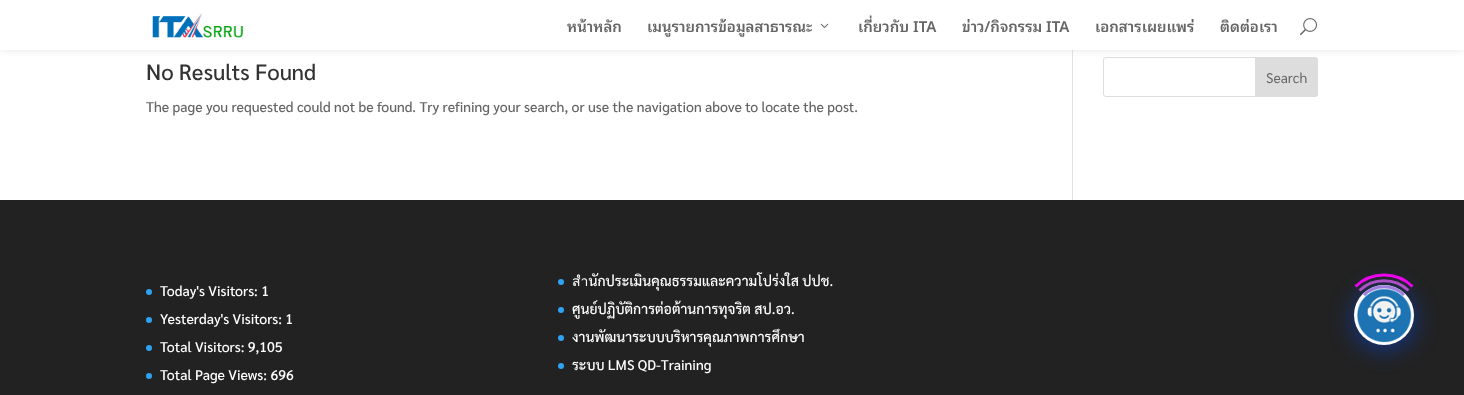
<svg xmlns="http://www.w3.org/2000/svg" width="1464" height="395">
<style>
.a{font:600 15px Noto Sans Thai Looped;fill:#666}
.b{font:500 22px Sarabun;fill:#333}
.c{font:500 14px Sarabun;fill:#666}
.d{font:14px Sarabun;fill:#666}
.e{font:500 14px Sarabun;fill:#fff}
</style>
<rect width="100%" height="100%" fill="#fff"/>
<path fill="#e2e2e2" d="M1072 50h1v150H1072z"/>
<rect fill="none" stroke="#ddd" x="1103.5" y="57.5" width="214" height="39" rx="2.5"/>
<path fill="#ddd" stroke="#ddd" d="M1255.5 57.5h59.5c1.5 0 2.5 1 2.5 2.5v34c0 1.5-1 2.5-2.5 2.5h-59.5z"/>
<path fill="#0000001a" filter="blur(3.5px)" d="M0 0h1464v50H0z"/>
<path fill="#fff" d="M0 0h1464v50H0z"/>
<image href="1.png" x="152" y="13" width="91" height="25"/>
<image href="2.png" x="820" y="23" width="9" height="5"/>
<image href="3.png" x="1300" y="18" width="17" height="18"/>
<path fill="#222" d="M0 200h1464v195H0z"/>
<circle fill="#2ea3f2" cx="149" cy="292" r="3"/>
<circle fill="#2ea3f2" cx="149" cy="320" r="3"/>
<circle fill="#2ea3f2" cx="149" cy="348" r="3"/>
<circle fill="#2ea3f2" cx="149" cy="376" r="3"/>
<circle fill="#2ea3f2" cx="561" cy="282" r="3"/>
<circle fill="#2ea3f2" cx="561" cy="310" r="3"/>
<circle fill="#2ea3f2" cx="561" cy="338" r="3"/>
<circle fill="#2ea3f2" cx="561" cy="366" r="3"/>
<rect fill="#004dff80" filter="blur(12px)" x="1354" y="289" width="60" height="60" rx="30"/>
<circle fill="#fff" cx="1384" cy="315" r="30"/>
<image href="4.png" x="1356" y="288" width="56" height="55"/>
<path fill="none" stroke="#9370dbe8" stroke-width="3" d="M1364 295c11-11 29-11 40 0"/>
<path fill="none" stroke="#ba55d3e8" stroke-width="3" d="M1359.5 290.5c13.5-13 35.5-13 49 0"/>
<path fill="none" stroke="#ff00ffe8" stroke-width="3" d="M1355.5 286.5c15.5-15.5 41.5-15.5 57 0"/>
<text class="a" x="567" y="32">หน้าหลัก</text>
<text class="a" x="647" y="32">เมนูรายการข้อมูลสาธารณะ</text>
<text class="a" x="858" y="32">เกี่ยวกับ ITA</text>
<text class="a" x="962" y="32">ข่าว/กิจกรรม ITA</text>
<text class="a" x="1095" y="32">เอกสารเผยแพร่</text>
<text class="a" x="1220" y="32">ติดต่อเรา</text>
<text class="b" x="146" y="80">No Results Found</text>
<text class="c" x="146" y="112">The page you requested could not be found. Try refining your search, or use the navigation above to locate the post.</text>
<text class="d" x="1266" y="83">Search</text>
<text class="e" x="160" y="296">Today's Visitors: 1</text>
<text class="e" x="160" y="324">Yesterday's Visitors: 1</text>
<text class="e" x="160" y="352">Total Visitors: 9,105</text>
<text class="e" x="160" y="380">Total Page Views: 696</text>
<text class="e" x="572" y="286">สำนักประเมินคุณธรรมและความโปร่งใส ปปช.</text>
<text class="e" x="572" y="314">ศูนย์ปฏิบัติการต่อต้านการทุจริต สป.อว.</text>
<text class="e" x="572" y="342">งานพัฒนาระบบบริหารคุณภาพการศึกษา</text>
<text class="e" x="572" y="370">ระบบ LMS QD-Training</text>
</svg>
